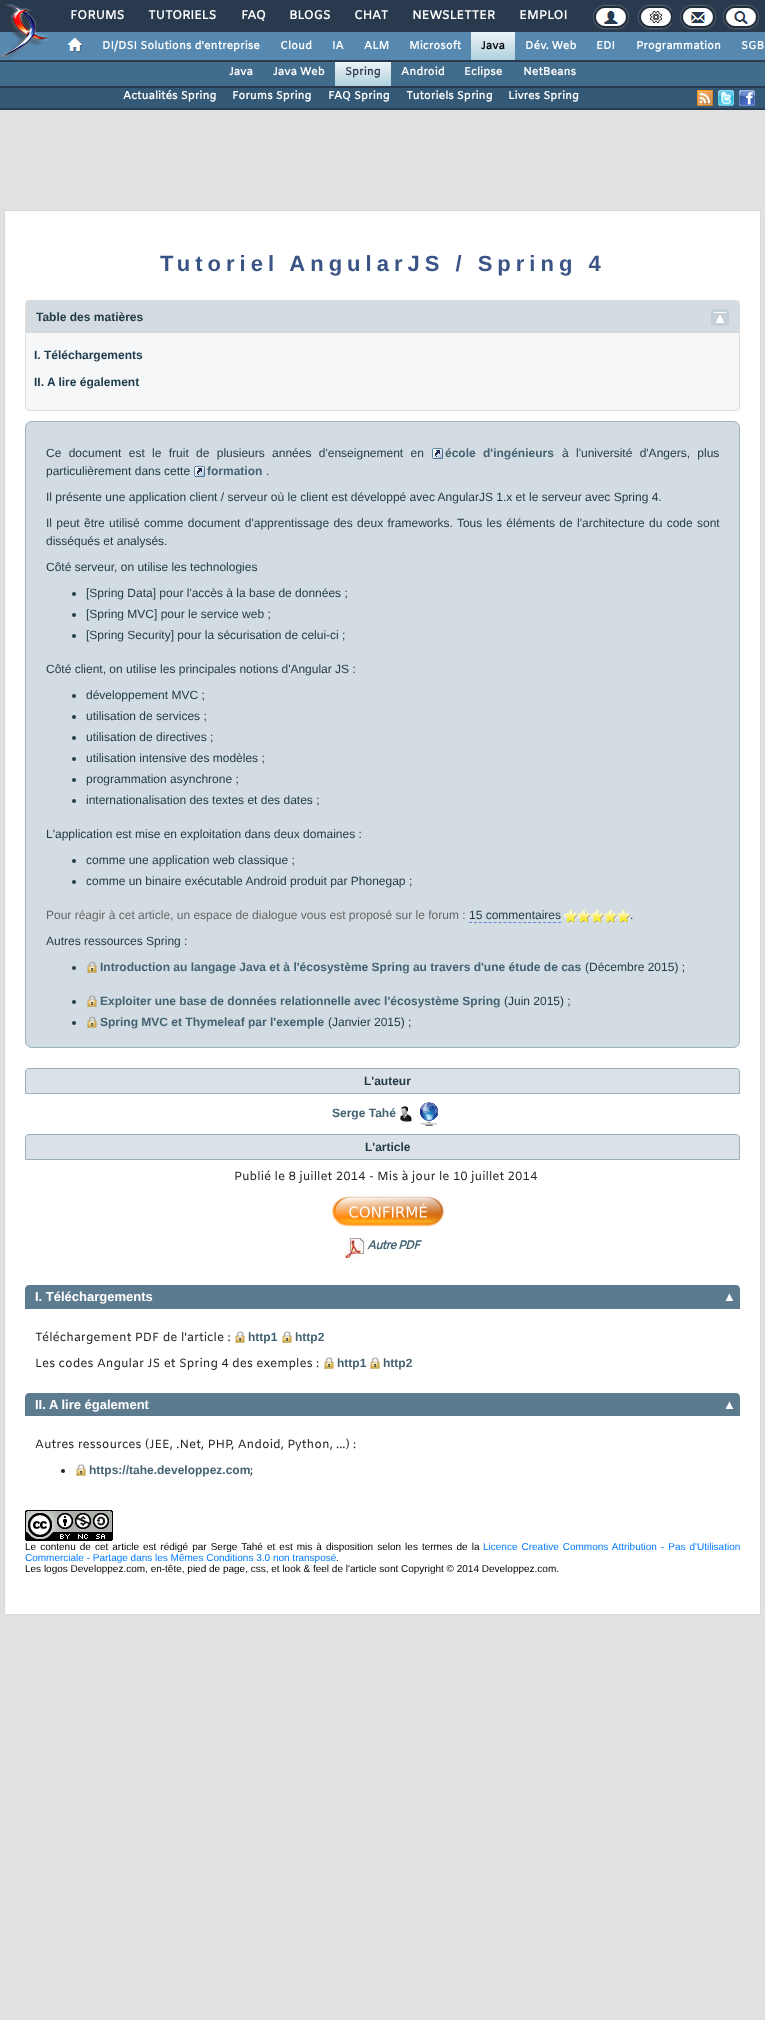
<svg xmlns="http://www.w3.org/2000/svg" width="765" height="2020">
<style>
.a{font:bold 12.25px Amiko;letter-spacing:-0.25px;fill:#fff}
.b{font:bold 12.25px Amiko;fill:#fff}
.c{font:bold 11px Amiko;fill:#fff}
.d{font:bold 11px Amiko;fill:#000}
.e{font:bold 11px Amiko;fill:#293a4e}
.f{font:bold 22px Liberation Sans;letter-spacing:5px;fill:#3a5486}
.g{font:bold 12px Liberation Sans;fill:#243c47}
.h{font:bold 12px Liberation Sans;fill:#203d4f}
.i{font:12px Liberation Sans;fill:#243c47}
.j{font:bold 12px Liberation Sans;fill:#446372}
.k{font:12px Liberation Sans;fill:#666}
.l{font:12px Amiko;fill:#212529}
.m{font:italic bold 12px Amiko;letter-spacing:-1px;fill:#446372}
.n{font:bold 13px Liberation Sans;fill:#fff}
.o{font:10px Liberation Sans;fill:#000}
.p{font:10px Liberation Sans;fill:#007bff}
</style>
<defs>
<linearGradient id="g1" gradientUnits="userSpaceOnUse" x1="493" y1="32" x2="493" y2="60"><stop offset="0" stop-color="#eaf5f8"/><stop offset="0.37" stop-color="#d8e6ec"/><stop offset="1" stop-color="#aed1dd"/></linearGradient>
<linearGradient id="g2" gradientUnits="userSpaceOnUse" x1="363" y1="62" x2="363" y2="86"><stop offset="0" stop-color="#eaf5f8"/><stop offset="0.37" stop-color="#d8e6ec"/><stop offset="1" stop-color="#aed1dd"/></linearGradient>
</defs>
<rect width="100%" height="100%" fill="#293a4e"/>
<path fill="#5789b0" d="M0 32h765v28H0z"/>
<image href="1.png" x="0" y="4" width="48" height="55"/>
<image href="2.png" x="593" y="4" width="36" height="26"/>
<image href="3.png" x="637" y="4" width="35" height="26"/>
<image href="4.png" x="680" y="4" width="36" height="26"/>
<image href="5.png" x="723" y="4" width="36" height="26"/>
<image href="6.png" x="67" y="38" width="16" height="14"/>
<path fill="url(#g1)" d="M471 32h44v28H471z"/>
<path fill="#426c8c" d="M0 62h765v24H0z"/>
<path fill="url(#g2)" d="M335 62h56v24H335z"/>
<path fill="#345976" d="M0 88h765v20H0z"/>
<image href="7.png" x="697" y="90" width="16" height="16"/>
<image href="8.png" x="718" y="90" width="16" height="16"/>
<image href="9.png" x="739" y="90" width="16" height="16"/>
<path fill="#e1e1e2" d="M0 110h765v1910H0z"/>
<path fill="#fff" stroke="#d7d9db" d="M4.5 210.5h756v1404H4.5z"/>
<rect fill="#f5f7f8" stroke="#ddd" x="25.5" y="300.5" width="714" height="110" rx="3.5"/>
<path fill="#9bb1bc33" d="M30 301h705c2 0 4 2 4 4v28h-713v-28c0-2 2-4 4-4z"/>
<path fill="#9bafbe33" d="M26 301h713v32H26z"/>
<rect fill="#c3d0d7" x="711" y="309" width="18" height="17" rx="3"/>
<image href="10.png" x="714" y="312" width="12" height="11"/>
<rect fill="#e2e8eb" x="25" y="421" width="715" height="627" rx="7"/>
<image href="11.png" x="25" y="421" width="715" height="627"/>
<rect fill="none" stroke="#9bb1bc" x="25.5" y="421.5" width="714" height="626" rx="6.5"/>
<image href="12.png" x="432" y="448" width="11" height="11"/>
<image href="12.png" x="194" y="466" width="11" height="11"/>
<circle fill="#243c47" cx="74" cy="594" r="2"/>
<circle fill="#243c47" cx="74" cy="615" r="2"/>
<circle fill="#243c47" cx="74" cy="636" r="2"/>
<circle fill="#243c47" cx="74" cy="696" r="2"/>
<circle fill="#243c47" cx="74" cy="717" r="2"/>
<circle fill="#243c47" cx="74" cy="738" r="2"/>
<circle fill="#243c47" cx="74" cy="759" r="2"/>
<circle fill="#243c47" cx="74" cy="780" r="2"/>
<circle fill="#243c47" cx="74" cy="801" r="2"/>
<circle fill="#243c47" cx="74" cy="861" r="2"/>
<circle fill="#243c47" cx="74" cy="882" r="2"/>
<path fill="none" stroke="#6389d8" stroke-dasharray="3 1.94" d="M469 922.5h92"/>
<image href="13.png" x="564" y="909" width="66" height="14"/>
<circle fill="#243c47" cx="74" cy="968" r="2"/>
<image href="14.png" x="87" y="961" width="10" height="12"/>
<circle fill="#243c47" cx="74" cy="1002" r="2"/>
<image href="14.png" x="87" y="995" width="10" height="12"/>
<circle fill="#243c47" cx="74" cy="1023" r="2"/>
<image href="14.png" x="87" y="1016" width="10" height="12"/>
<path fill="#ebeff2" d="M29 1068h707c2 0 4 2 4 4v22h-715v-22c0-2 2-4 4-4z"/>
<path fill="#9bafbe33" d="M25 1069h715v24H25z"/>
<path fill="none" stroke="#9bb1bc" d="M29 1068.5h707c2 0 3.5 1.5 3.5 3.5v21.5h-714v-21.5c0-2 1.5-3.5 3.5-3.5z"/>
<image href="15.png" x="400" y="1106" width="12" height="16"/>
<image href="16.png" x="420" y="1102" width="18" height="24"/>
<path fill="#ebeff2" d="M29 1134h707c2 0 4 2 4 4v22h-715v-22c0-2 2-4 4-4z"/>
<path fill="#9bafbe33" d="M25 1135h715v24H25z"/>
<path fill="none" stroke="#9bb1bc" d="M29 1134.5h707c2 0 3.5 1.5 3.5 3.5v21.5h-714v-21.5c0-2 1.5-3.5 3.5-3.5z"/>
<image href="17.png" x="331" y="1196" width="114" height="31"/>
<image href="18.png" x="345" y="1238" width="20" height="20"/>
<path fill="#5d7b8e" d="M29 1285h707c2 0 4 2 4 4v20h-715v-20c0-2 2-4 4-4z"/>
<image href="19.png" x="235" y="1331" width="10" height="12"/>
<image href="19.png" x="282" y="1331" width="10" height="12"/>
<image href="19.png" x="324" y="1357" width="10" height="12"/>
<image href="19.png" x="370" y="1357" width="10" height="12"/>
<path fill="#5d7b8e" d="M29 1393h707c2 0 4 2 4 4v19h-715v-19c0-2 2-4 4-4z"/>
<circle fill="#212529" cx="63" cy="1471" r="2"/>
<image href="19.png" x="76" y="1464" width="10" height="12"/>
<image href="20.png" x="25" y="1510" width="88" height="31"/>
<text class="a" x="70" y="19">FORUMS</text>
<text class="a" x="148" y="19">TUTORIELS</text>
<text class="a" x="241" y="19">FAQ</text>
<text class="a" x="289" y="19">BLOGS</text>
<text class="a" x="354" y="19">CHAT</text>
<text class="a" x="412" y="19">NEWSLETTER</text>
<text class="b" x="519" y="19">EMPLOI</text>
<text class="c" x="102" y="49">DI/DSI Solutions d'entreprise</text>
<text class="c" x="280" y="49">Cloud</text>
<text class="c" x="332" y="49">IA</text>
<text class="c" x="364" y="49">ALM</text>
<text class="c" x="409" y="49">Microsoft</text>
<text class="d" x="481" y="49">Java</text>
<text class="c" x="525" y="49">Dév. Web</text>
<text class="c" x="596" y="49">EDI</text>
<text class="c" x="636" y="49">Programmation</text>
<text class="c" x="741" y="49">SGB</text>
<text class="c" x="229" y="75">Java</text>
<text class="c" x="273" y="75">Java Web</text>
<text class="e" x="345" y="75">Spring</text>
<text class="c" x="401" y="75">Android</text>
<text class="c" x="464" y="75">Eclipse</text>
<text class="c" x="523" y="75">NetBeans</text>
<text class="c" x="123" y="99">Actualités Spring</text>
<text class="c" x="232" y="99">Forums Spring</text>
<text class="c" x="328" y="99">FAQ Spring</text>
<text class="c" x="406" y="99">Tutoriels Spring</text>
<text class="c" x="508" y="99">Livres Spring</text>
<text class="f" x="160" y="271">Tutoriel AngularJS / Spring 4</text>
<text class="g" x="36" y="321">Table des matières</text>
<text class="h" x="34" y="359">I. Téléchargements</text>
<text class="h" x="34" y="386">II. A lire également</text>
<text class="i" x="46" y="457" word-spacing="4">Ce document est le fruit de plusieurs années d'enseignement en</text>
<text class="j" x="445" y="457" word-spacing="4">école d'ingénieurs</text>
<text class="i" x="562" y="457" word-spacing="4">à l'université d'Angers, plus</text>
<text class="i" x="46" y="475">particulièrement dans cette</text>
<text class="j" x="207" y="475">formation</text>
<text class="i" x="266" y="475">.</text>
<text class="i" x="46" y="501">Il présente une application client / serveur où le client est développé avec AngularJS 1.x et le serveur avec Spring 4.</text>
<text class="i" x="46" y="527" word-spacing="1">Il peut être utilisé comme document d'apprentissage des deux frameworks. Tous les éléments de l'architecture du code sont</text>
<text class="i" x="46" y="545">disséqués et analysés.</text>
<text class="i" x="46" y="571">Côté serveur, on utilise les technologies</text>
<text class="i" x="86" y="597">[Spring Data] pour l'accès à la base de données ;</text>
<text class="i" x="86" y="618">[Spring MVC] pour le service web ;</text>
<text class="i" x="86" y="639">[Spring Security] pour la sécurisation de celui-ci ;</text>
<text class="i" x="46" y="673">Côté client, on utilise les principales notions d'Angular JS :</text>
<text class="i" x="86" y="699">développement MVC ;</text>
<text class="i" x="86" y="720">utilisation de services ;</text>
<text class="i" x="86" y="741">utilisation de directives ;</text>
<text class="i" x="86" y="762">utilisation intensive des modèles ;</text>
<text class="i" x="86" y="783">programmation asynchrone ;</text>
<text class="i" x="86" y="804">internationalisation des textes et des dates ;</text>
<text class="i" x="46" y="838">L'application est mise en exploitation dans deux domaines :</text>
<text class="i" x="86" y="864">comme une application web classique ;</text>
<text class="i" x="86" y="885">comme un binaire exécutable Android produit par Phonegap ;</text>
<text class="k" x="46" y="919">Pour réagir à cet article, un espace de dialogue vous est proposé sur le forum :</text>
<text class="i" x="469" y="919">15 commentaires</text>
<text class="i" x="630" y="919">.</text>
<text class="i" x="46" y="945">Autres ressources Spring :</text>
<text class="j" x="100" y="971">Introduction au langage Java et à l'écosystème Spring au travers d'une étude de cas</text>
<text class="i" x="585" y="971">(Décembre 2015) ;</text>
<text class="j" x="100" y="1005">Exploiter une base de données relationnelle avec l'écosystème Spring</text>
<text class="i" x="504" y="1005">(Juin 2015) ;</text>
<text class="j" x="100" y="1026">Spring MVC et Thymeleaf par l'exemple</text>
<text class="i" x="328" y="1026">(Janvier 2015) ;</text>
<text class="g" x="364" y="1085">L'auteur</text>
<text class="j" x="332" y="1117">Serge Tahé</text>
<text class="g" x="365" y="1151">L'article</text>
<text class="l" x="234" y="1180">Publié le 8 juillet 2014 - Mis à jour le 10 juillet 2014</text>
<text class="m" x="367" y="1249">Autre PDF</text>
<text class="n" x="35" y="1301">I. Téléchargements</text>
<text class="n" x="723" y="1301">▲</text>
<text class="l" x="35" y="1341">Téléchargement PDF de l'article :</text>
<text class="j" x="248" y="1341">http1</text>
<text class="j" x="295" y="1341">http2</text>
<text class="l" x="35" y="1367">Les codes Angular JS et Spring 4 des exemples :</text>
<text class="j" x="337" y="1367">http1</text>
<text class="j" x="383" y="1367">http2</text>
<text class="n" x="35" y="1409">II. A lire également</text>
<text class="n" x="723" y="1409">▲</text>
<text class="l" x="35" y="1448">Autres ressources (JEE, .Net, PHP, Andoid, Python, ...) :</text>
<text class="j" x="89" y="1474">https://tahe.developpez.com</text>
<text class="l" x="250" y="1474">;</text>
<text class="o" x="25" y="1550" word-spacing="1.25">Le contenu de cet article est rédigé par Serge Tahé</text>
<text class="o" x="267" y="1550" word-spacing="1.25">et est mis à disposition selon les termes de la</text>
<text class="p" x="483" y="1550" word-spacing="1.25">Licence Creative Commons Attribution - Pas d'Utilisation</text>
<text class="p" x="25" y="1561">Commerciale - Partage dans les Mêmes Conditions 3.0 non transposé</text>
<text class="o" x="336" y="1561">.</text>
<text class="o" x="25" y="1572">Les logos Developpez.com, en-tête, pied de page, css, et look &amp; feel de l'article sont Copyright © 2014 Developpez.com.</text>
</svg>
